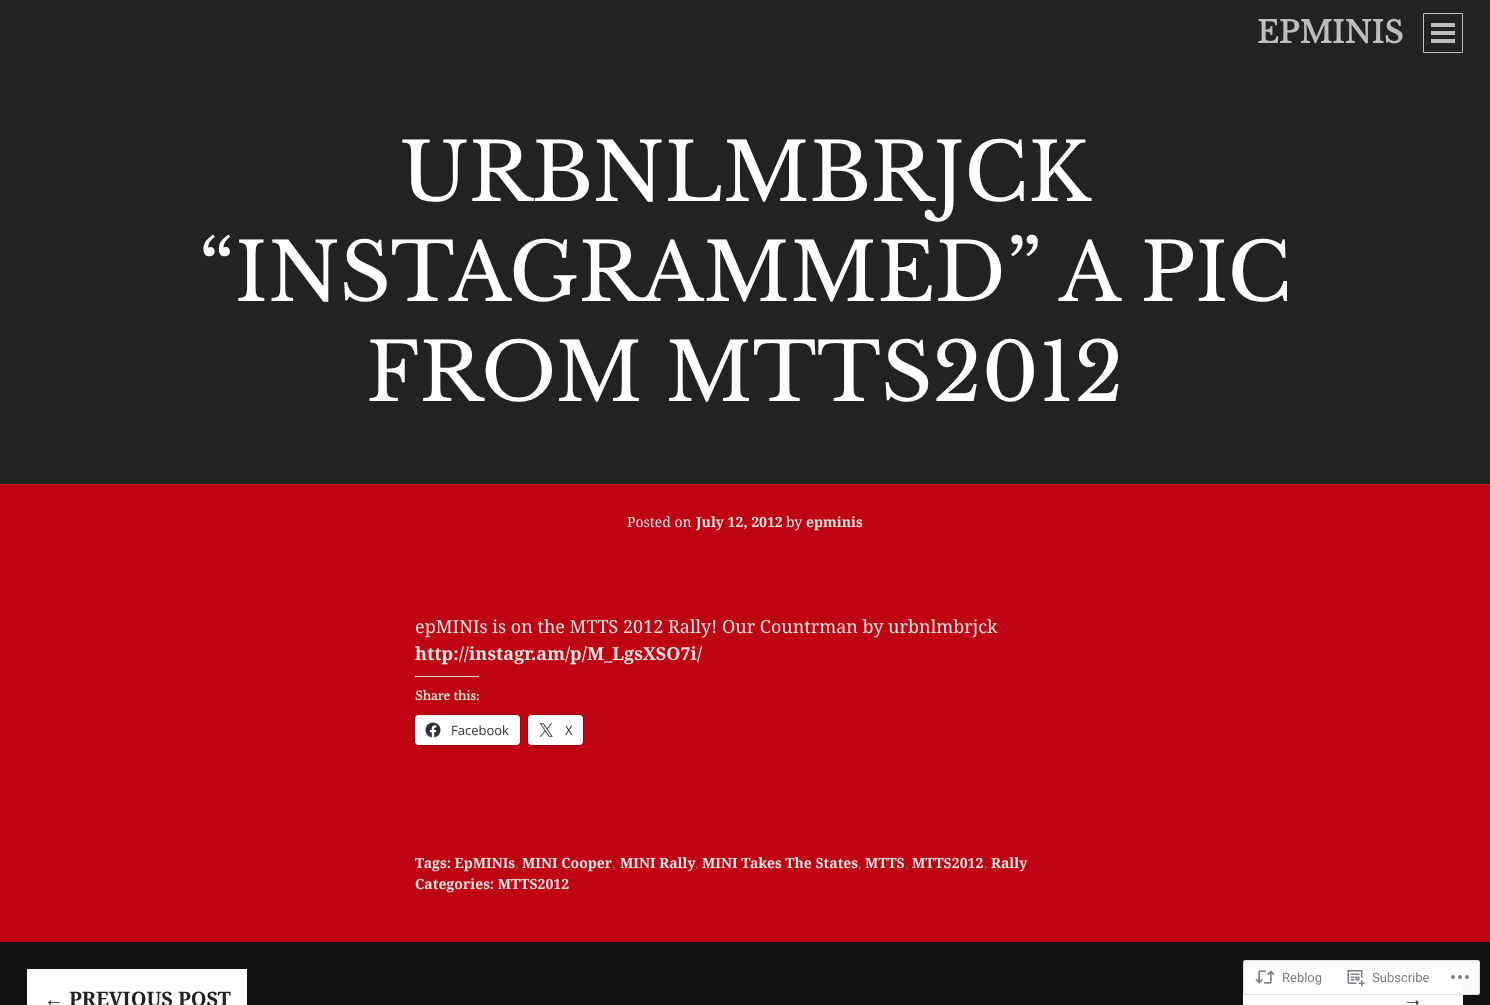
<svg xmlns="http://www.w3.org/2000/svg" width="1490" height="1005">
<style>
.a{font:bold 30px Libre Baskerville;fill:#bdbdbd}
.b{font:79.9px Libre Baskerville;fill:#fff}
.c{font:14px Noto Serif;fill:#e2e2e2}
.d{font:bold 14px Noto Serif;fill:#e2e2e2}
.e{font:18px Noto Serif;fill:#e2e2e2}
.f{font:bold 18px Noto Serif;fill:#e2e2e2}
.g{font:bold 12px Libre Baskerville;fill:#dbe5d1}
.h{font:13px Open Sans;fill:#2c3338}
.i{font:14px Noto Serif;fill:#767676}
.j{font:bold 20px Liberation Serif;fill:#222}
.k{font:bold 20px Noto Serif;fill:#222}
.l{font:13px Roboto;fill:#7b7f85}
</style>
<rect width="100%" height="100%" fill="#be0412"/>
<path fill="#222" d="M0 0h1490v484H0z"/>
<path fill="none" stroke="#bdbdbd" d="M1423.5 13.5h39v39H1423.5z"/>
<path fill="#bdbdbd" d="M1431 31h24v4H1431z"/>
<path fill="#bdbdbd" d="M1431 23h24v4H1431z"/>
<path fill="#bdbdbd" d="M1431 39h24v4H1431z"/>
<path fill="#dcdcde" d="M415 676h64v1H415z"/>
<rect fill="none" stroke="#a70410" x="414.5" y="714.5" width="106" height="31" rx="4.5"/>
<rect fill="#0000001f" filter="blur(1px)" x="415" y="716" width="105" height="30" rx="4"/>
<rect fill="#fff" x="415" y="715" width="105" height="30" rx="4"/>
<image href="1.png" x="425" y="722" width="16" height="16"/>
<rect fill="none" stroke="#a70410" x="527.5" y="714.5" width="56" height="31" rx="4.5"/>
<rect fill="#0000001f" filter="blur(1px)" x="528" y="716" width="55" height="30" rx="4"/>
<rect fill="#fff" x="528" y="715" width="55" height="30" rx="4"/>
<image href="2.png" x="539" y="723" width="14" height="14"/>
<path fill="#111" d="M0 942h1490v63H0z"/>
<path fill="#fff" d="M27 969h220v36H27z"/>
<path fill="#fff" d="M1243 969h220v36H1243z"/>
<rect fill="#fffffffa" x="1243" y="960" width="237" height="35" rx="3"/>
<rect fill="none" stroke="#dcdcdefa" x="1243.5" y="960.5" width="236" height="34" rx="2.5"/>
<image href="3.png" x="1255" y="970" width="20" height="14"/>
<image href="4.png" x="1347" y="970" width="18" height="17"/>
<image href="5.png" x="1451" y="975" width="18" height="4"/>
<text class="a" x="1257" y="43">EPMINIS</text>
<text class="b" x="400" y="201">URBNLMBRJCK</text>
<text class="b" x="199" y="301">“INSTAGRAMMED” A PIC</text>
<text class="b" x="366" y="401">FROM MTTS2012</text>
<text class="c" x="627" y="527">Posted on</text>
<text class="d" x="696" y="527">July 12, 2012</text>
<text class="c" x="786" y="527">by</text>
<text class="d" x="806" y="527">epminis</text>
<text class="e" x="415" y="633">epMINIs is on the MTTS 2012 Rally! Our Countrman by urbnlmbrjck</text>
<text class="f" x="415" y="660">http://instagr.am/p/M_LgsXSO7i/</text>
<text class="g" x="415" y="700">Share this:</text>
<text class="h" x="451" y="735">Facebook</text>
<text class="h" x="565" y="735">X</text>
<text class="d" x="415" y="868">Tags: EpMINIs</text>
<text class="i" x="515" y="868">,</text>
<text class="d" x="522" y="868">MINI Cooper</text>
<text class="i" x="612" y="868">,</text>
<text class="d" x="620" y="868">MINI Rally</text>
<text class="i" x="695" y="868">,</text>
<text class="d" x="702" y="868">MINI Takes The States</text>
<text class="i" x="858" y="868">,</text>
<text class="d" x="865" y="868">MTTS</text>
<text class="i" x="905" y="868">,</text>
<text class="d" x="912" y="868">MTTS2012</text>
<text class="i" x="984" y="868">,</text>
<text class="d" x="991" y="868">Rally</text>
<text class="d" x="415" y="889">Categories: MTTS2012</text>
<text class="j" x="44" y="1006">←</text>
<text class="k" x="69" y="1006">PREVIOUS POST</text>
<text class="j" x="1403" y="1006">→</text>
<text class="l" x="1282" y="982">Reblog</text>
<text class="l" x="1372" y="982">Subscribe</text>
</svg>
